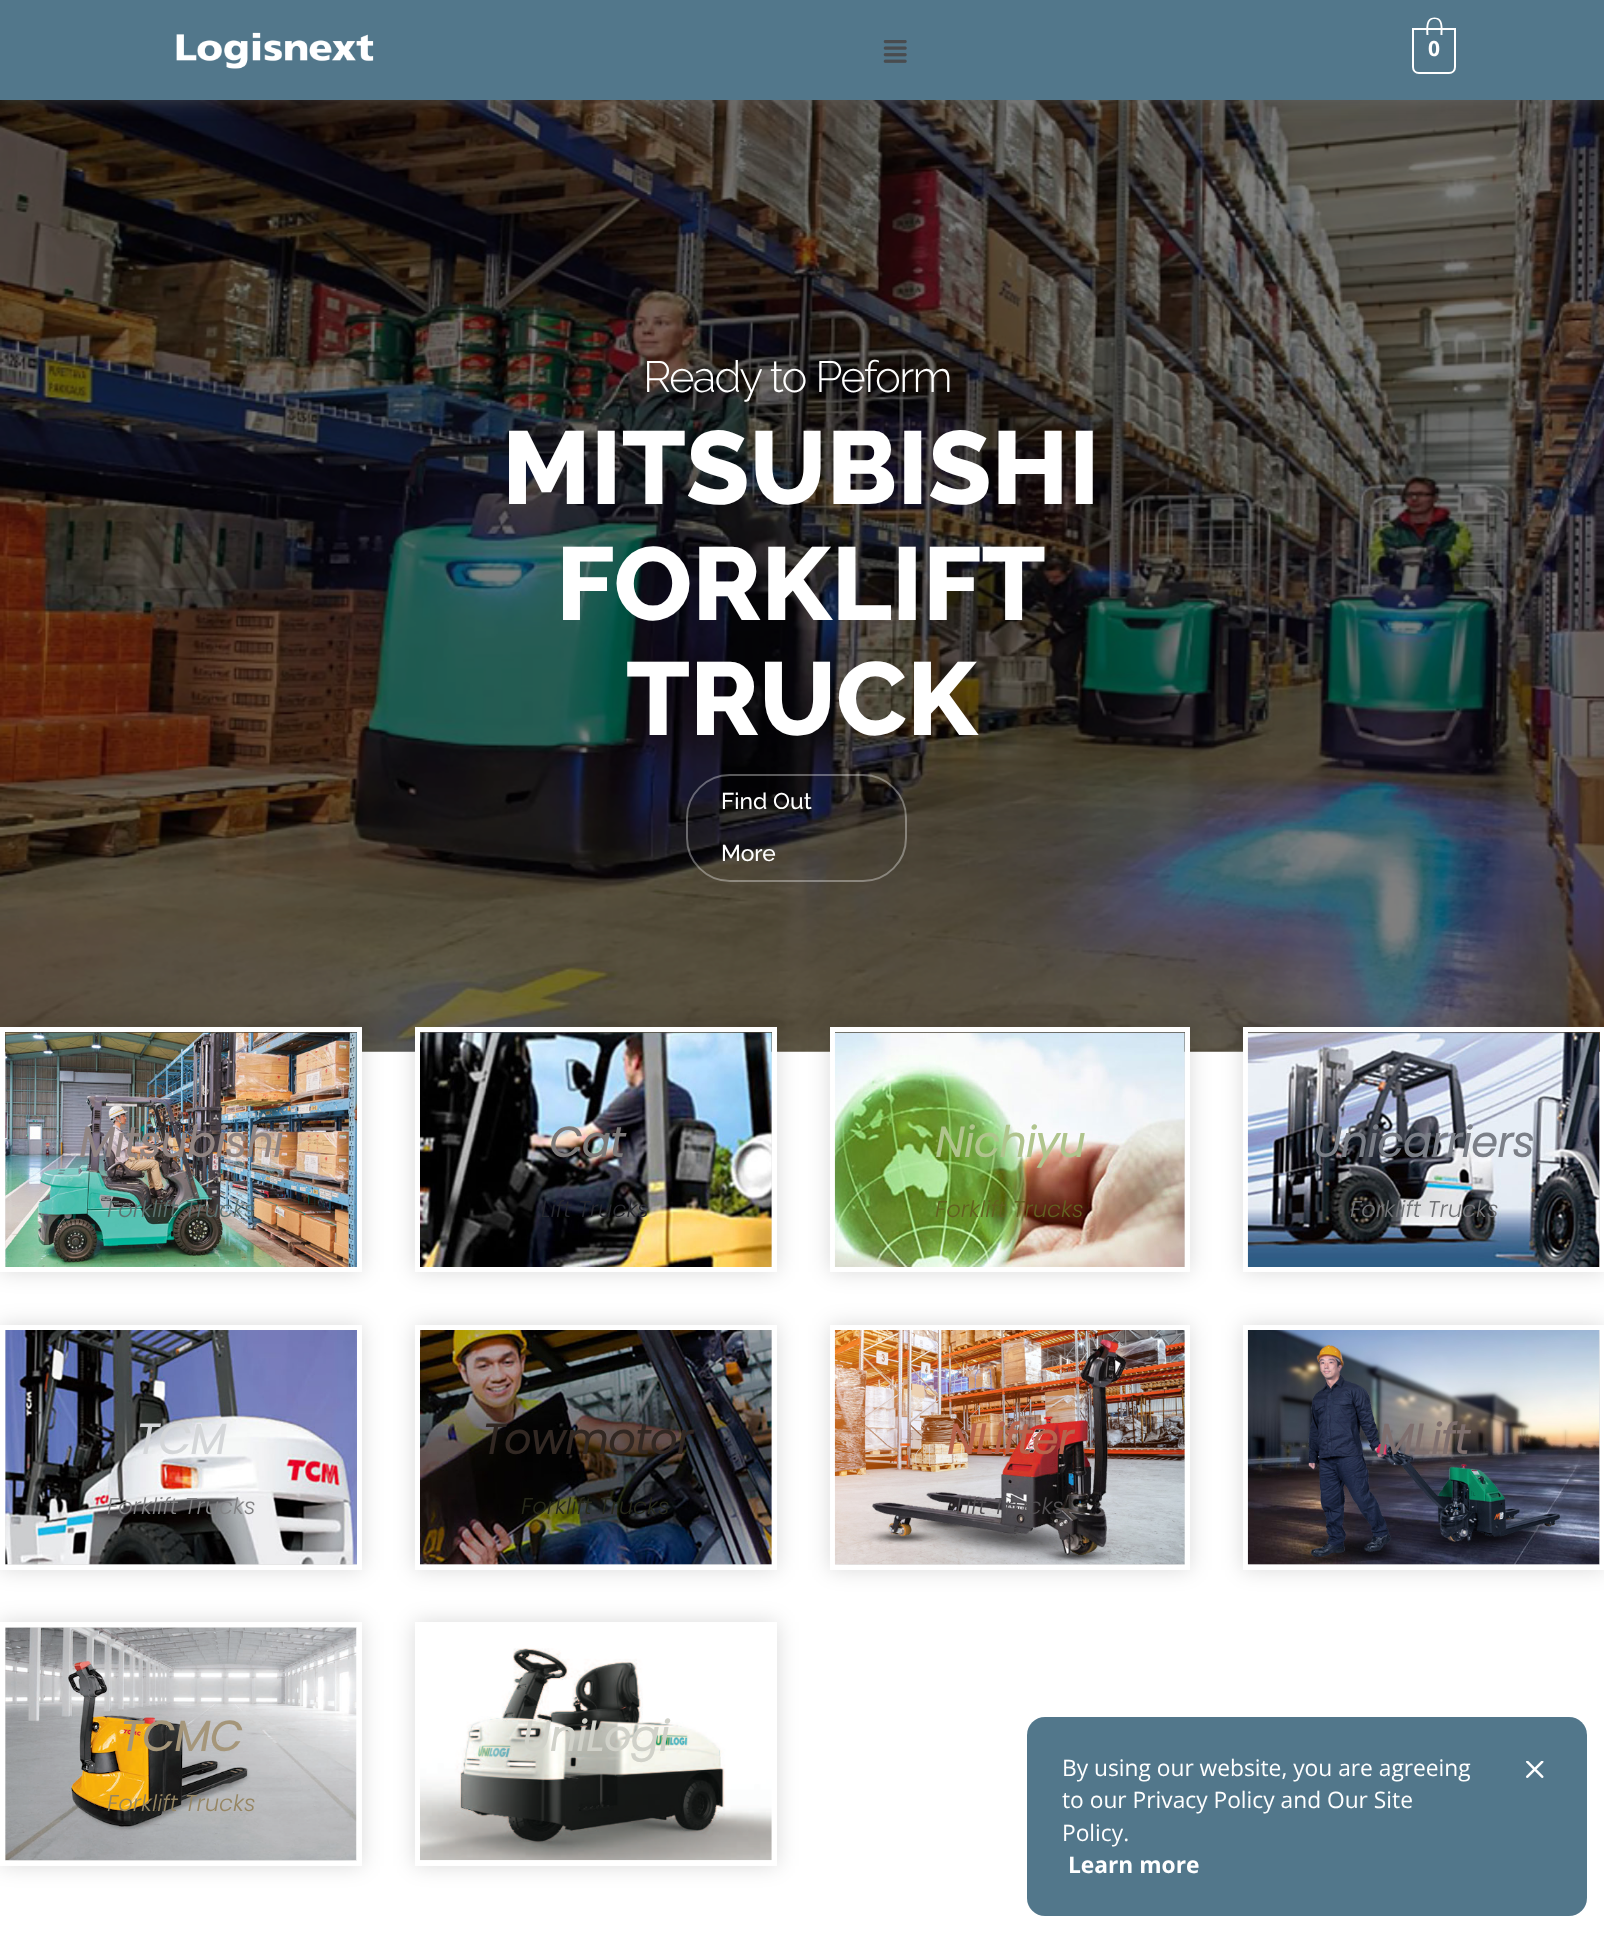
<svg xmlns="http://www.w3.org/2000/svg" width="1604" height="1933">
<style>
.a{font:bold 21px Open Sans;fill:#fff}
.b{font:300 43.75px Raleway;letter-spacing:-1.75px;fill:#fff}
.c{font:800 103.25px Raleway;fill:#fff}
.d{font:500 22.75px Raleway;fill:#fff}
.e{font:italic bold 42px Poppins;fill:#918582}
.f{font:italic 300 22.75px Poppins;fill:#5b7270}
.g{font:italic bold 42px Poppins;fill:#7d7a79}
.h{font:italic 300 22.75px Poppins;fill:#28292f}
.i{font:italic bold 42px Poppins;fill:#b0c48d}
.j{font:italic 300 22.75px Poppins;fill:#626021}
.k{font:italic bold 42px Poppins;fill:#7b7f87}
.l{font:italic 300 22.75px Poppins;fill:#717376}
.m{font:italic bold 42px Poppins;fill:#d4d6d8}
.n{font:italic 300 22.75px Poppins;fill:#828284}
.o{font:italic bold 42px Poppins;fill:#322823}
.p{font:italic 300 22.75px Poppins;fill:#282a1b}
.q{font:italic bold 42px Poppins;fill:#b7644d}
.r{font:italic 300 22.75px Poppins;fill:#535053}
.s{font:italic bold 42px Poppins;fill:#7e6f6e}
.t{font:italic bold 42px Poppins;fill:#a5967a}
.u{font:italic 300 22.75px Poppins;fill:#968663}
.v{font:italic bold 42px Poppins;fill:#d0d1c9}
.w{font:22.75px Open Sans;fill:#fff}
.x{font:bold 22.75px Open Sans;fill:#fff}
</style>
<defs>
<clipPath id="clip1"><path d="M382 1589h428v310h-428zm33 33h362v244h-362z" clip-rule="evenodd"/></clipPath>
</defs>
<rect width="100%" height="100%" fill="#fff"/>
<image href="3.png" x="0" y="100" width="1604" height="952"/>
<path fill="#72727280" filter="blur(9px)" d="M0 0h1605v100H0z"/>
<path fill="#52778b" d="M0 0h1604v100H0z"/>
<image href="1.png" x="176" y="32" width="198" height="37"/>
<image href="2.png" x="883" y="40" width="24" height="23"/>
<path fill="none" stroke="#fff" stroke-width="2" d="M1413 29h42v38c0 3.5-2.5 6-6 6h-30c-3.5 0-6-2.5-6-6z"/>
<path fill="#fff" fill-rule="evenodd" d="M1434.5 17.5c9.5 0 8 11 8 17.5h-16c0-6.5-1.5-17.5 8-17.5zm0 1.5c8 0 6 11 6 16h-12c0-5-2-16 6-16z"/>
<rect fill="none" stroke="#ffffff59" stroke-width="2" x="687" y="775" width="219" height="106" rx="43"/>
<path fill="#00000026" filter="blur(10.5px)" d="M0 1027h362v245H0z"/>
<path fill="none" stroke="#fff" stroke-width="5" d="M2.5 1029.5h357v240H2.5z"/>
<image href="4.png" x="5" y="1032" width="352" height="235"/>
<path fill="#00000026" filter="blur(10.5px)" d="M415 1027h362v245H415z"/>
<path fill="none" stroke="#fff" stroke-width="5" d="M417.5 1029.5h357v240H417.5z"/>
<image href="5.png" x="420" y="1032" width="352" height="235"/>
<path fill="#00000026" filter="blur(10.5px)" d="M830 1027h360v245H830z"/>
<path fill="none" stroke="#fff" stroke-width="5" d="M832.5 1029.5h355v240H832.5z"/>
<image href="6.png" x="834" y="1032" width="351" height="235"/>
<path fill="#00000026" filter="blur(10.5px)" d="M1243 1027h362v245H1243z"/>
<path fill="none" stroke="#fff" stroke-width="5" d="M1245.5 1029.5h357v240H1245.5z"/>
<image href="7.png" x="1247" y="1032" width="353" height="235"/>
<path fill="#00000026" filter="blur(10.5px)" d="M0 1325h362v245H0z"/>
<path fill="none" stroke="#fff" stroke-width="5" d="M2.5 1327.5h357v240H2.5z"/>
<image href="8.png" x="5" y="1330" width="352" height="235"/>
<path fill="#00000026" filter="blur(10.5px)" d="M415 1325h362v245H415z"/>
<path fill="none" stroke="#fff" stroke-width="5" d="M417.5 1327.5h357v240H417.5z"/>
<image href="9.png" x="420" y="1330" width="352" height="235"/>
<path fill="#00000026" filter="blur(10.5px)" d="M830 1325h360v245H830z"/>
<path fill="none" stroke="#fff" stroke-width="5" d="M832.5 1327.5h355v240H832.5z"/>
<image href="10.png" x="834" y="1330" width="351" height="235"/>
<path fill="#00000026" filter="blur(10.5px)" d="M1243 1325h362v245H1243z"/>
<path fill="none" stroke="#fff" stroke-width="5" d="M1245.5 1327.5h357v240H1245.5z"/>
<image href="11.png" x="1247" y="1330" width="353" height="235"/>
<path fill="#00000026" filter="blur(10.5px)" d="M0 1622h362v244H0z"/>
<path fill="none" stroke="#fff" stroke-width="5" d="M2.5 1624.5h357v239H2.5z"/>
<image href="12.png" x="5" y="1627" width="352" height="234"/>
<g clip-path="url(#clip1)">
<path fill="#00000026" filter="blur(10.5px)" d="M415 1622h362v244H415z"/>
</g>
<path fill="none" stroke="#fff" stroke-width="5" d="M417.5 1624.5h357v239H417.5z"/>
<image href="13.png" x="420" y="1648" width="352" height="213"/>
<rect fill="#52778b" x="1027" y="1717" width="560" height="199" rx="18"/>
<image href="14.png" x="1526" y="1761" width="18" height="17"/>
<text class="a" x="1428" y="56">0</text>
<text class="b" x="643" y="392">Ready to Peform</text>
<text class="c" x="502" y="504">MITSUBISHI</text>
<text class="c" x="556" y="620">FORKLIFT</text>
<text class="c" x="626" y="735">TRUCK</text>
<text class="d" x="721" y="809">Find Out</text>
<text class="d" x="721" y="861">More</text>
<text class="e" x="79" y="1157">Mitsubishi</text>
<text class="f" x="107" y="1217">Forklift Trucks</text>
<text class="g" x="549" y="1157">Cat</text>
<text class="h" x="541" y="1217">Lift Trucks</text>
<text class="i" x="935" y="1157">Nichiyu</text>
<text class="j" x="935" y="1217">Forklift Trucks</text>
<text class="k" x="1313" y="1157">Unicarriers</text>
<text class="l" x="1350" y="1217">Forklift Trucks</text>
<text class="m" x="136" y="1454">TCM</text>
<text class="n" x="107" y="1514">Forklift Trucks</text>
<text class="o" x="482" y="1454">Towmotor</text>
<text class="p" x="521" y="1514">Forklift Trucks</text>
<text class="q" x="947" y="1454">NLifter</text>
<text class="r" x="956" y="1514">Lift Trucks</text>
<text class="s" x="1378" y="1454">MLift</text>
<text class="t" x="120" y="1751">TCMC</text>
<text class="u" x="107" y="1811">Forklift Trucks</text>
<text class="v" x="522" y="1751">UniLogi</text>
<text class="w" x="1062" y="1776">By using our website, you are agreeing</text>
<text class="w" x="1062" y="1808">to our Privacy Policy and Our Site</text>
<text class="w" x="1062" y="1841">Policy.</text>
<text class="x" x="1068" y="1873">Learn more</text>
</svg>
